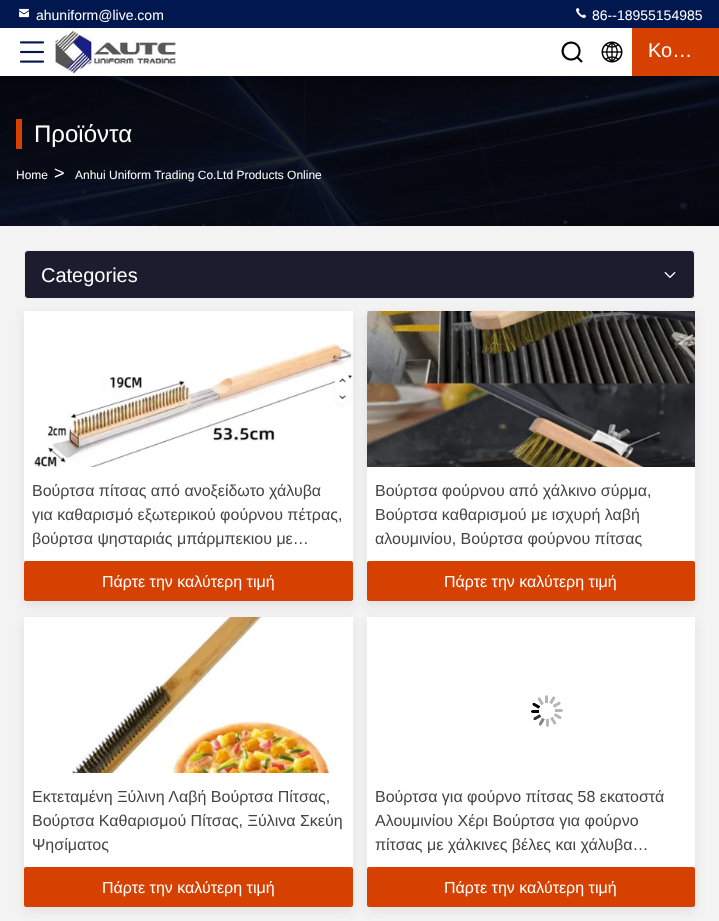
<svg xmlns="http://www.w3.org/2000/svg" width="719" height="921">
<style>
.a{font:14px Liberation Sans;fill:#fff}
.b{font:20px Liberation Sans;fill:#fff}
.c{font:24px Liberation Sans;fill:#fff}
.d{font:12px Liberation Sans;fill:#fff}
.e{font:18px Liberation Sans;fill:#fff}
.f{font:16px Liberation Sans;fill:#444}
.g{font:16px Liberation Sans;fill:#fff}
</style>
<defs>
<clipPath id="clip1"><path d="M24 479h329v68H24z"/></clipPath>
<clipPath id="clip2"><path d="M367 479h328v68H367z"/></clipPath>
<clipPath id="clip3"><path d="M24 785h329v68H24z"/></clipPath>
<clipPath id="clip4"><path d="M367 785h328v68H367z"/></clipPath>
</defs>
<rect width="100%" height="100%" fill="#f3f3f3"/>
<image href="7.png" x="0" y="76" width="719" height="150"/>
<path fill="#00000026" filter="blur(3px)" d="M0 2h719v76H0z"/>
<path fill="#00184f" d="M0 0h719v28H0z"/>
<image href="1.png" x="19" y="8" width="10" height="10"/>
<image href="2.png" x="576" y="8" width="10" height="10"/>
<path fill="#fff" d="M0 28h632v48H0z"/>
<image href="3.png" x="20" y="41" width="24" height="22"/>
<image href="4.png" x="54" y="30" width="122" height="44"/>
<image href="5.png" x="561" y="41" width="22" height="22"/>
<image href="6.png" x="601" y="41" width="22" height="22"/>
<path fill="#d64000" d="M632 28h87v48H632z"/>
<path fill="#d64000" d="M16 119h6v30H16z"/>
<path fill="#00000014" filter="blur(6px)" d="M24 315h329v290H24z"/>
<path fill="#fff" d="M24 311h329v290H24z"/>
<path fill="#00000014" filter="blur(6px)" d="M367 315h328v290H367z"/>
<rect fill="#1b1d2e" stroke="#eee" x="24.5" y="250.5" width="670" height="48" rx="3.5"/>
<image href="8.png" x="664" y="272" width="12" height="6"/>
<image href="9.png" x="33" y="344" width="320" height="123"/>
<rect fill="#d64000" x="24" y="561" width="329" height="40" rx="2"/>
<path fill="#fff" d="M367 467h328v134H367z"/>
<image href="10.png" x="367" y="311" width="328" height="156"/>
<rect fill="#d64000" x="367" y="561" width="328" height="40" rx="2"/>
<path fill="#00000014" filter="blur(6px)" d="M24 621h329v290H24z"/>
<path fill="#fff" d="M24 617h329v290H24z"/>
<image href="11.png" x="69" y="617" width="264" height="156"/>
<path fill="#00000014" filter="blur(6px)" d="M367 621h328v290H367z"/>
<rect fill="#d64000" x="24" y="867" width="329" height="40" rx="2"/>
<path fill="#fff" d="M367 617h328v290H367z"/>
<image href="12.png" x="531" y="695" width="32" height="32"/>
<rect fill="#d64000" x="367" y="867" width="328" height="40" rx="2"/>
<text class="a" x="36" y="20">ahuniform@live.com</text>
<text class="a" x="592" y="20">86--18955154985</text>
<text class="b" x="648" y="57">Κο…</text>
<text class="c" x="34" y="142">Προϊόντα</text>
<text class="d" x="16" y="179">Home</text>
<text class="e" x="54" y="179">&gt;</text>
<text class="d" x="75" y="179">Anhui Uniform Trading Co.Ltd Products Online</text>
<text class="b" x="41" y="282">Categories</text>
<text class="f" x="32" y="496">Βούρτσα πίτσας από ανοξείδωτο χάλυβα</text>
<text class="f" x="32" y="520">για καθαρισμό εξωτερικού φούρνου πέτρας,</text>
<g clip-path="url(#clip1)">
<text class="f" x="32" y="544">βούρτσα ψησταριάς μπάρμπεκιου με…</text>
</g>
<text class="g" x="102" y="587">Πάρτε την καλύτερη τιμή</text>
<text class="f" x="375" y="496">Βούρτσα φούρνου από χάλκινο σύρμα,</text>
<text class="f" x="375" y="520">Βούρτσα καθαρισμού με ισχυρή λαβή</text>
<g clip-path="url(#clip2)">
<text class="f" x="375" y="544">αλουμινίου, Βούρτσα φούρνου πίτσας</text>
</g>
<text class="g" x="444" y="587">Πάρτε την καλύτερη τιμή</text>
<text class="f" x="32" y="802">Εκτεταμένη Ξύλινη Λαβή Βούρτσα Πίτσας,</text>
<text class="f" x="32" y="826">Βούρτσα Καθαρισμού Πίτσας, Ξύλινα Σκεύη</text>
<g clip-path="url(#clip3)">
<text class="f" x="32" y="850">Ψησίματος</text>
</g>
<text class="g" x="102" y="893">Πάρτε την καλύτερη τιμή</text>
<text class="f" x="375" y="802">Βούρτσα για φούρνο πίτσας 58 εκατοστά</text>
<text class="f" x="375" y="826">Αλουμινίου Χέρι Βούρτσα για φούρνο</text>
<g clip-path="url(#clip4)">
<text class="f" x="375" y="850">πίτσας με χάλκινες βέλες και χάλυβα…</text>
</g>
<text class="g" x="444" y="893">Πάρτε την καλύτερη τιμή</text>
</svg>
